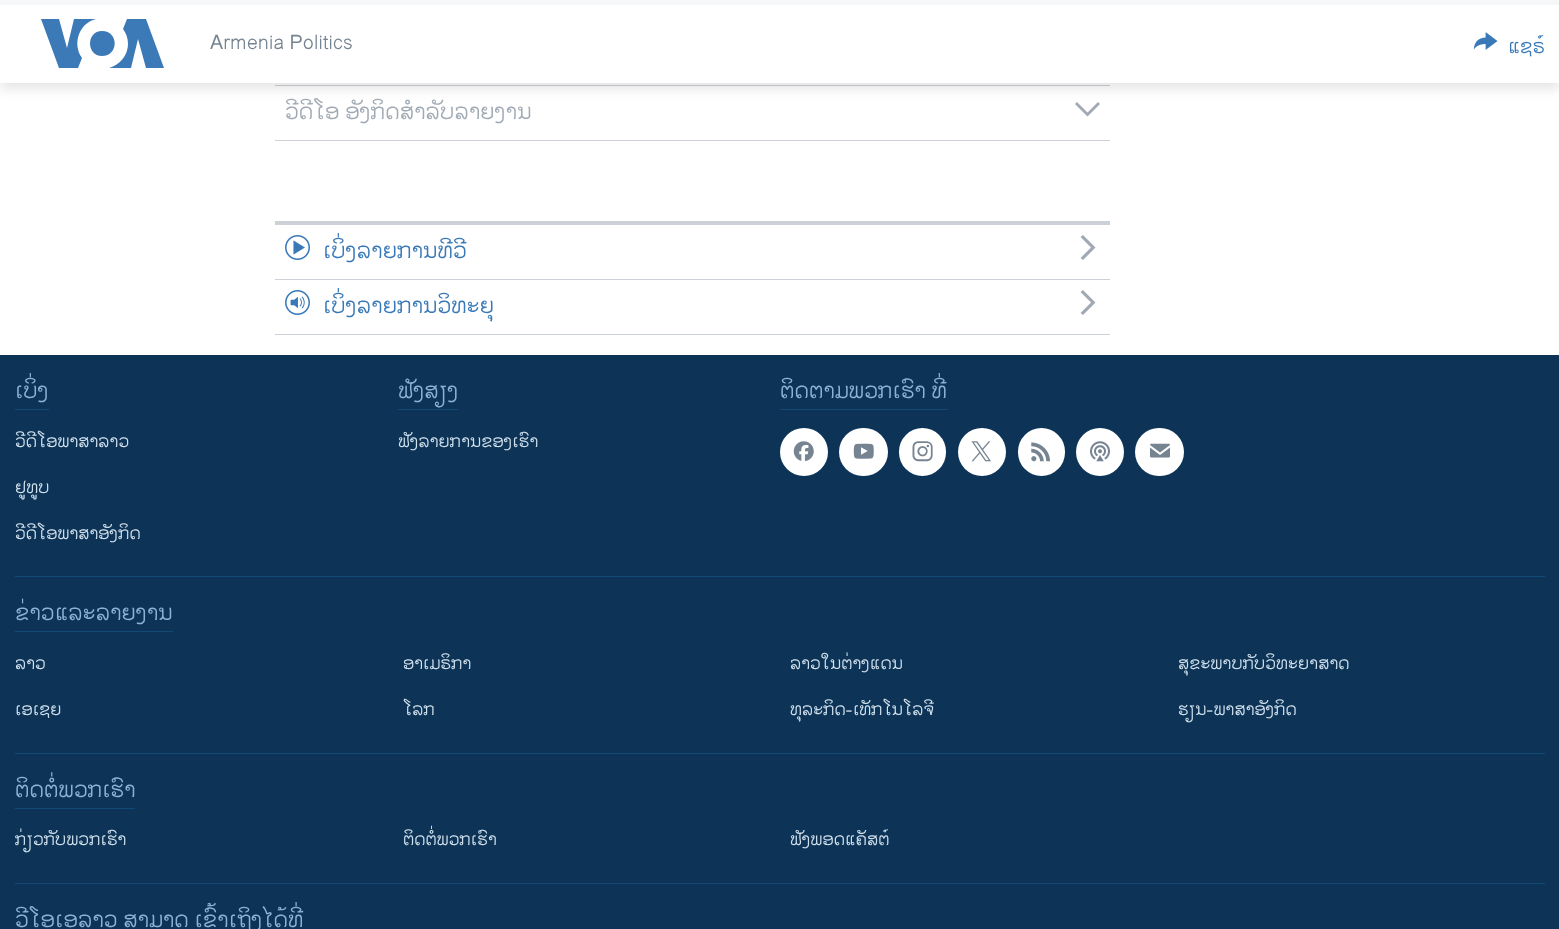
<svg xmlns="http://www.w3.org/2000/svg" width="1559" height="929">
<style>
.a{font:20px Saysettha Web;fill:#768492}
.b{font:20px Saysettha Web;fill:#3a79b7}
.c{font:22.5px Saysettha Web;fill:#a1aab4}
.d{font:22.5px Saysettha Web;fill:#3a79b7}
.e{font:22.5px Saysettha Web;fill:#8db3d4}
.f{font:17.5px Saysettha Web;fill:#d1e1ee}
</style>
<rect width="100%" height="100%" fill="#fff"/>
<path fill="#cbd1d6" d="M275 85h835v1H275z"/>
<path fill="#a1aab4" d="M1075 104l12.5 12.5l12.5-12.5l-2-2l-10.5 10.5l-10.5-10.5z"/>
<path fill="#0000001a" filter="blur(6px)" d="M0 6h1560v83H0z"/>
<path fill="#fff" d="M0 5h1559v78H0z"/>
<path fill="#f6f7f8" d="M0 0h1559v5H0z"/>
<path fill="#3b79b7" d="M82 58l-4 10h-19l-18-49h18l8 29l7-29h22c-17 4-24 25-14 39zm20-27c-16 0-16 25 0 25c17 0 17-25 0-25zm26 13c0 11-8 21-19 24h22l7-29l8 29h18l-18-49h-19l-4 10c3 4 5 9 5 15z"/>
<image href="1.png" x="1473" y="32" width="25" height="18"/>
<path fill="#cbd1d6" d="M275 140h835v1H275z"/>
<path fill="#cbd1d6" d="M275 221h835v4H275z"/>
<path fill="#cbd1d6" d="M275 279h835v1H275z"/>
<image href="2.png" x="285" y="235" width="25" height="25"/>
<path fill="#a1aab4" d="M1083 260l12.5-12.5l-12.5-12.5l-2.5 2l10.5 10.5l-10.5 10.5z"/>
<path fill="#cbd1d6" d="M275 334h835v1H275z"/>
<image href="3.png" x="285" y="290" width="25" height="25"/>
<path fill="#a1aab4" d="M1083 315l12.5-12.5l-12.5-12.5l-2.5 2l10.5 10.5l-10.5 10.5z"/>
<path fill="#0d3456" d="M0 355h1559v574H0z"/>
<path fill="#134976" d="M15 409h34v1H15z"/>
<path fill="#134976" d="M398 409h60v1H398z"/>
<path fill="#134976" d="M780 409h168v1H780z"/>
<circle fill="#fff" cx="804" cy="452" r="24"/>
<image href="4.png" x="793" y="441" width="21" height="21"/>
<rect fill="#fff" x="839" y="428" width="49" height="48" rx="24"/>
<image href="5.png" x="853" y="443" width="21" height="16"/>
<rect fill="#fff" x="899" y="428" width="47" height="48" rx="23.5"/>
<image href="6.png" x="912" y="441" width="21" height="21"/>
<circle fill="#fff" cx="982" cy="452" r="24"/>
<image href="7.png" x="971" y="441" width="20" height="21"/>
<rect fill="#fff" x="1018" y="428" width="47" height="48" rx="23.5"/>
<image href="8.png" x="1031" y="442" width="19" height="20"/>
<circle fill="#fff" cx="1100" cy="452" r="24"/>
<image href="9.png" x="1090" y="441" width="20" height="21"/>
<rect fill="#fff" x="1135" y="428" width="49" height="48" rx="24"/>
<image href="10.png" x="1150" y="443" width="20" height="15"/>
<path fill="#134976" d="M15 576h1530v1H15z"/>
<path fill="#134976" d="M15 631h158v1H15z"/>
<path fill="#134976" d="M15 753h1530v1H15z"/>
<path fill="#134976" d="M15 808h120v1H15z"/>
<path fill="#134976" d="M15 883h1530v1H15z"/>
<text class="a" x="210" y="49">Armenia Politics</text>
<text class="b" x="1508" y="53">ແຊຣ໌</text>
<text class="c" x="285" y="119">ວີດີໂອ ອັງກິດສຳລັບລາຍງານ</text>
<text class="d" x="323" y="258">ເບິ່ງລາຍການທີວີ</text>
<text class="d" x="323" y="313">ເບິ່ງລາຍການວິທະຍຸ</text>
<text class="e" x="15" y="398">ເບິ່ງ</text>
<text class="f" x="15" y="447">ວີດີໂອພາສາລາວ</text>
<text class="f" x="15" y="493">ຢູທູບ</text>
<text class="f" x="15" y="539">ວີດີໂອພາສາອັງກິດ</text>
<text class="e" x="398" y="398">ຟັງສຽງ</text>
<text class="f" x="398" y="447">ຟັງລາຍການຂອງເຮົາ</text>
<text class="e" x="780" y="398">ຕິດຕາມພວກເຮົາ ທີ່</text>
<text class="e" x="15" y="620">ຂ່າວແລະລາຍງານ</text>
<text class="f" x="15" y="669">ລາວ</text>
<text class="f" x="403" y="669">ອາເມຣິກາ</text>
<text class="f" x="790" y="669">ລາວໃນຕ່າງແດນ</text>
<text class="f" x="1178" y="669">ສຸຂະພາບກັບວິທະຍາສາດ</text>
<text class="f" x="15" y="715">ເອເຊຍ</text>
<text class="f" x="403" y="715">ໂລກ</text>
<text class="f" x="790" y="715">ທຸລະກິດ-ເທັກໂນໂລຈີ</text>
<text class="f" x="1178" y="715">ຮຽນ-ພາສາອັງກິດ</text>
<text class="e" x="15" y="797">ຕິດຕໍ່ພວກເຮົາ</text>
<text class="f" x="15" y="845">ກ່ຽວກັບພວກເຮົາ</text>
<text class="f" x="403" y="845">ຕິດຕໍ່ພວກເຮົາ</text>
<text class="f" x="790" y="845">ຟັງພອດແຄັສຕ໌</text>
<text class="e" x="15" y="927">ວີໂອເອລາວ ສາມາດ ເຂົ້າເຖິງໄດ້ທີ່</text>
</svg>
